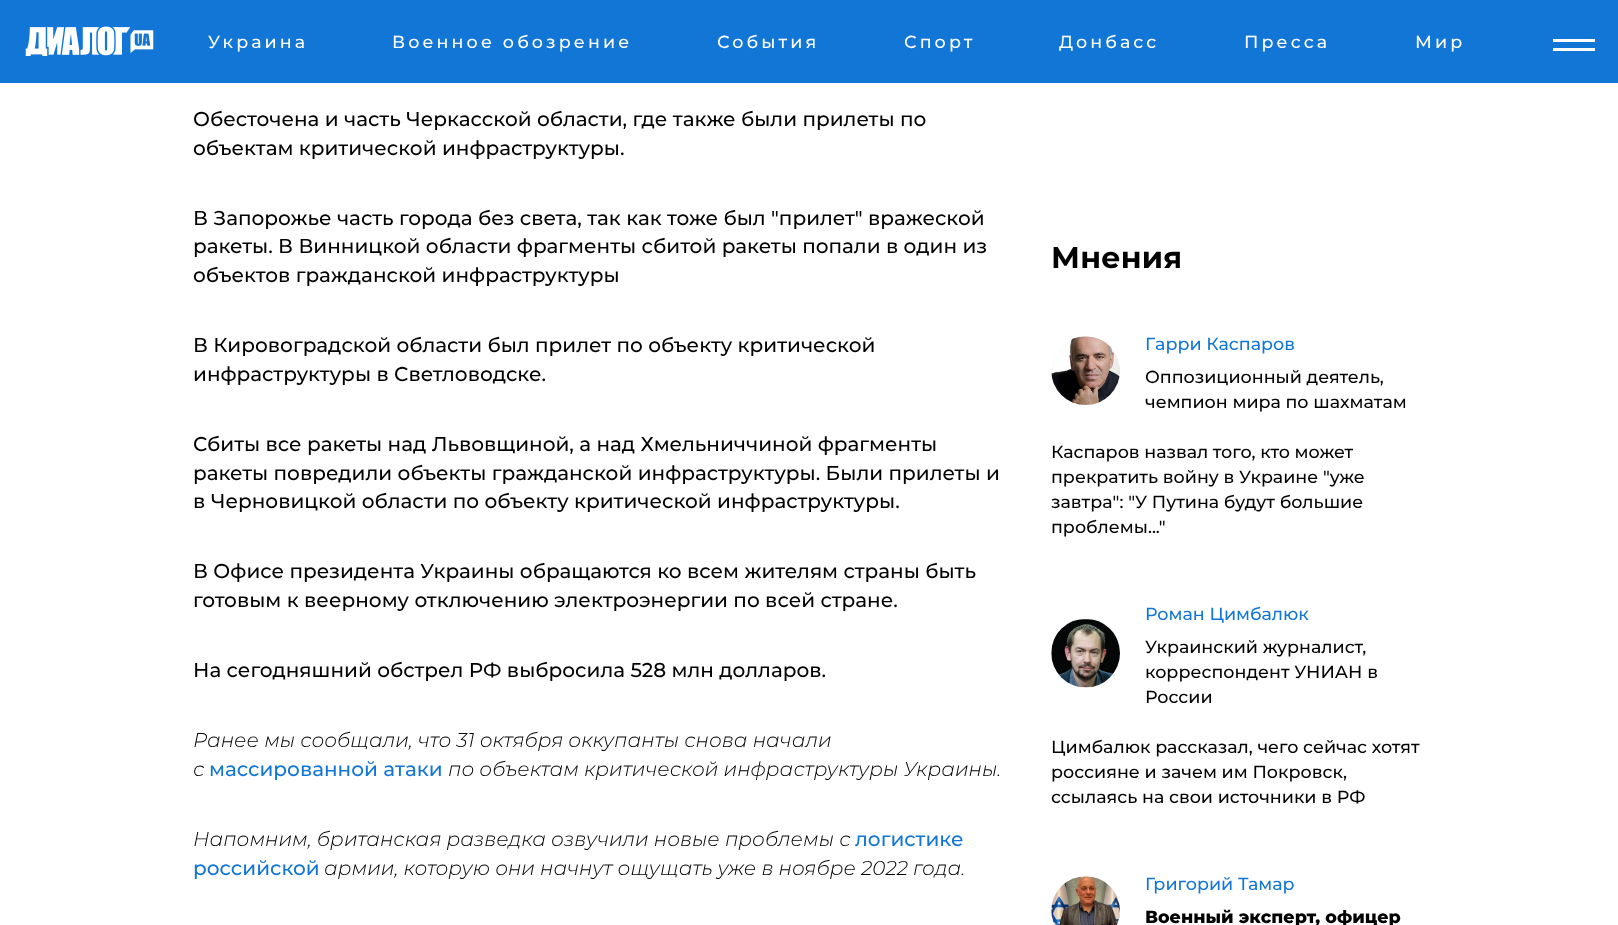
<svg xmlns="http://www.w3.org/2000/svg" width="1618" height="925">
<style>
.a{font:500 17.5px Montserrat;letter-spacing:3.1px;fill:#fff}
.b{font:500 20px Montserrat;fill:#000}
.c{font:italic 300 20px Montserrat;fill:#000}
.d{font:500 20px Montserrat;fill:#1276d7}
.e{font:bold 30px Montserrat;letter-spacing:0.25px;fill:#000}
.f{font:500 17.5px Montserrat;fill:#1276d7}
.g{font:500 17.5px Montserrat;fill:#000}
.h{font:800 17.5px Montserrat;fill:#000}
</style>
<rect width="100%" height="100%" fill="#fff"/>
<path fill="#1276d7" d="M0 0h1618v83H0z"/>
<image href="1.png" x="25" y="26" width="129" height="30"/>
<path fill="#fff" d="M1553 39h42v3H1553z"/>
<path fill="#fff" d="M1553 48h42v3H1553z"/>
<image href="2.png" x="1051" y="336" width="69" height="69"/>
<image href="3.png" x="1051" y="619" width="69" height="69"/>
<image href="4.png" x="1051" y="876" width="69" height="49"/>
<text class="a" x="208" y="48">Украина</text>
<text class="a" x="392" y="48">Военное обозрение</text>
<text class="a" x="717" y="48">События</text>
<text class="a" x="904" y="48">Спорт</text>
<text class="a" x="1059" y="48">Донбасс</text>
<text class="a" x="1244" y="48">Пресса</text>
<text class="a" x="1415" y="48">Мир</text>
<text class="b" x="193" y="126">Обесточена и часть Черкасской области, где также были прилеты по</text>
<text class="b" x="193" y="155">объектам критической инфраструктуры.</text>
<text class="b" x="193" y="225">В Запорожье часть города без света, так как тоже был "прилет" вражеской</text>
<text class="b" x="193" y="253">ракеты. В Винницкой области фрагменты сбитой ракеты попали в один из</text>
<text class="b" x="193" y="282">объектов гражданской инфраструктуры</text>
<text class="b" x="193" y="352">В Кировоградской области был прилет по объекту критической</text>
<text class="b" x="193" y="381">инфраструктуры в Светловодске.</text>
<text class="b" x="193" y="451">Сбиты все ракеты над Львовщиной, а над Хмельниччиной фрагменты</text>
<text class="b" x="193" y="480">ракеты повредили объекты гражданской инфраструктуры. Были прилеты и</text>
<text class="b" x="193" y="508">в Черновицкой области по объекту критической инфраструктуры.</text>
<text class="b" x="193" y="578">В Офисе президента Украины обращаются ко всем жителям страны быть</text>
<text class="b" x="193" y="607">готовым к веерному отключению электроэнергии по всей стране.</text>
<text class="b" x="193" y="677">На сегодняшний обстрел РФ выбросила 528 млн долларов.</text>
<text class="c" x="193" y="747">Ранее мы сообщали, что 31 октября оккупанты снова начали</text>
<text class="c" x="193" y="776">с</text>
<text class="d" x="209" y="776">массированной атаки</text>
<text class="c" x="448" y="776">по объектам критической инфраструктуры Украины.</text>
<text class="c" x="193" y="846">Напомним, британская разведка озвучили новые проблемы с</text>
<text class="d" x="855" y="846">логистике</text>
<text class="d" x="193" y="875">российской</text>
<text class="c" x="324" y="875">армии, которую они начнут ощущать уже в ноябре 2022 года.</text>
<text class="e" x="1051" y="268">Мнения</text>
<text class="f" x="1145" y="350">Гарри Каспаров</text>
<text class="g" x="1145" y="383">Оппозиционный деятель,</text>
<text class="g" x="1145" y="408">чемпион мира по шахматам</text>
<text class="g" x="1051" y="458">Каспаров назвал того, кто может</text>
<text class="g" x="1051" y="483">прекратить войну в Украине "уже</text>
<text class="g" x="1051" y="508">завтра": "У Путина будут большие</text>
<text class="g" x="1051" y="533">проблемы..."</text>
<text class="f" x="1145" y="620">Роман Цимбалюк</text>
<text class="g" x="1145" y="653">Украинский журналист,</text>
<text class="g" x="1145" y="678">корреспондент УНИАН в</text>
<text class="g" x="1145" y="703">России</text>
<text class="g" x="1051" y="753">Цимбалюк рассказал, чего сейчас хотят</text>
<text class="g" x="1051" y="778">россияне и зачем им Покровск,</text>
<text class="g" x="1051" y="803">ссылаясь на свои источники в РФ</text>
<text class="f" x="1145" y="890">Григорий Тамар</text>
<text class="h" x="1145" y="923">Военный эксперт, офицер</text>
</svg>
